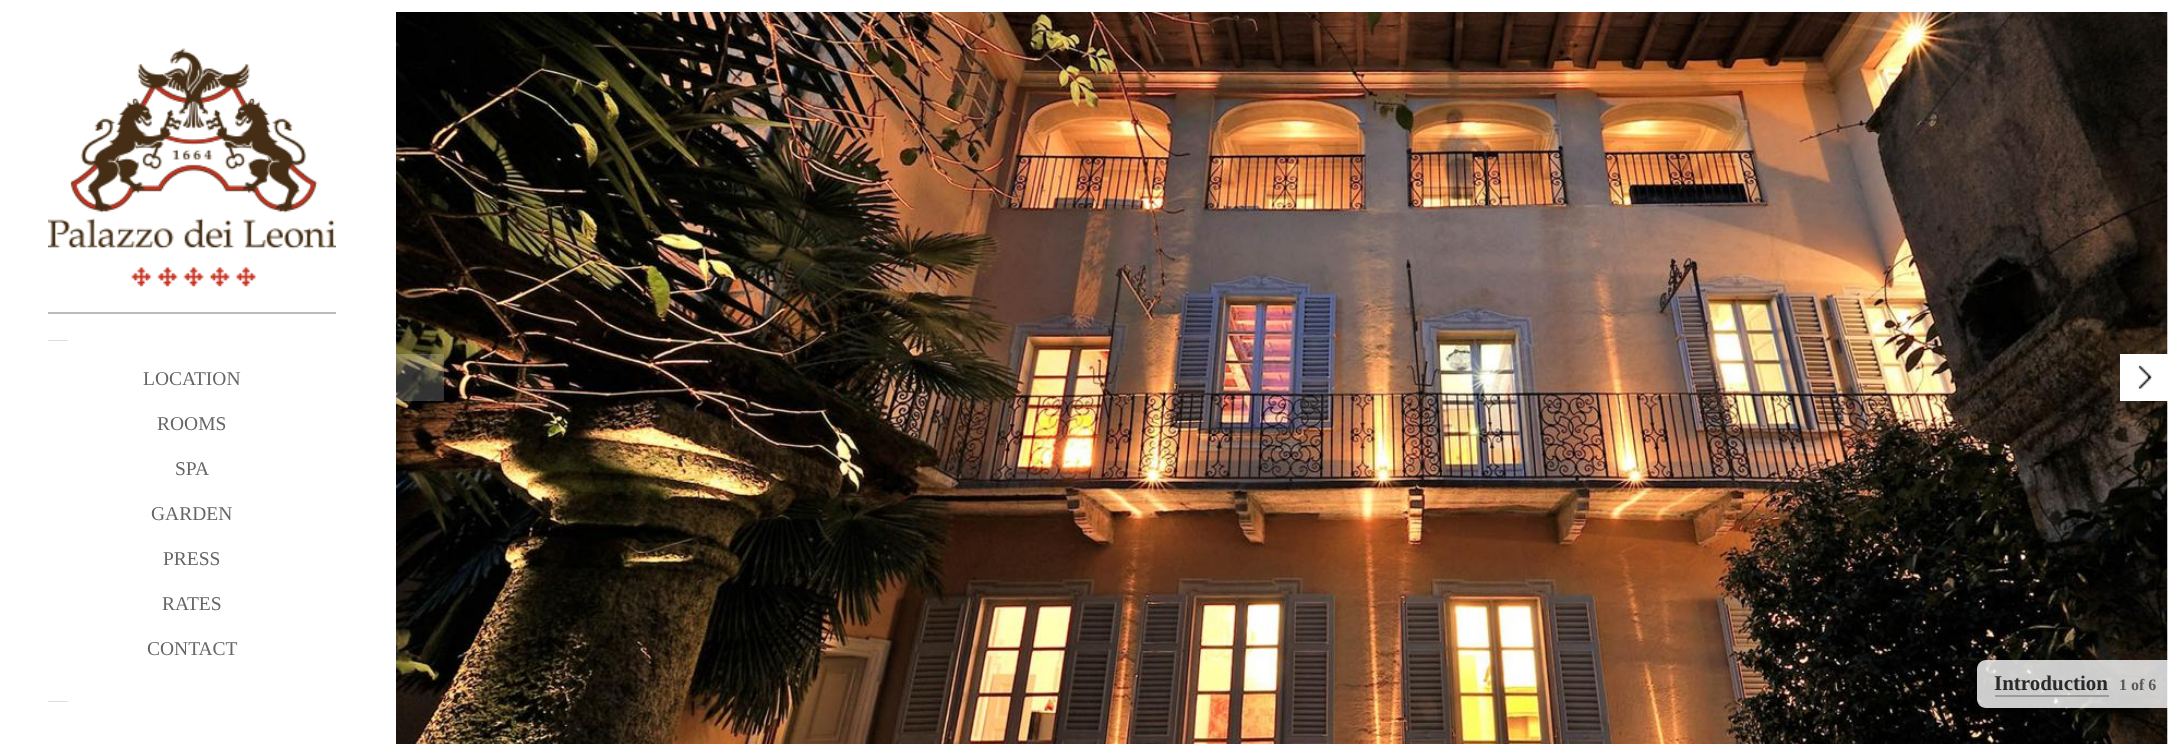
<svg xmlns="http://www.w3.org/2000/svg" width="2179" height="756">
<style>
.a{font:19.5px Liberation Serif;fill:#ddd}
.b{font:19.5px Liberation Serif;fill:#666}
.c{font:bold 21px Liberation Serif;fill:#292929}
.d{font:bold 16px Liberation Serif;fill:#595855}
</style>
<rect width="100%" height="100%" fill="#fff"/>
<image href="1.png" x="48" y="48" width="288" height="239"/>
<path fill="#bbb" d="M48 312h288v2H48z"/>
<image href="2.png" x="396" y="12" width="1772" height="732"/>
<path fill="#ffffff33" d="M396 354h48v47H396z"/>
<image href="3.png" x="412" y="366" width="13" height="23"/>
<path fill="#fff" d="M2120 354h48v47H2120z"/>
<image href="4.png" x="2138" y="365" width="14" height="24"/>
<path fill="#ffffffcc" d="M1986 660h182v48h-182c-5 0-9-4-9-9v-30c0-5 4-9 9-9z"/>
<path fill="#0000003d" d="M1995 695h114v2H1995z"/>
<text class="a" x="48" y="345">—</text>
<text class="b" x="143" y="385">LOCATION</text>
<text class="b" x="157" y="430">ROOMS</text>
<text class="b" x="175" y="475">SPA</text>
<text class="b" x="151" y="520">GARDEN</text>
<text class="b" x="163" y="565">PRESS</text>
<text class="b" x="162" y="610">RATES</text>
<text class="b" x="147" y="655">CONTACT</text>
<text class="a" x="48" y="706">—</text>
<text class="c" x="1994" y="690">Introduction</text>
<text class="d" x="2119" y="690">1 of 6</text>
</svg>
